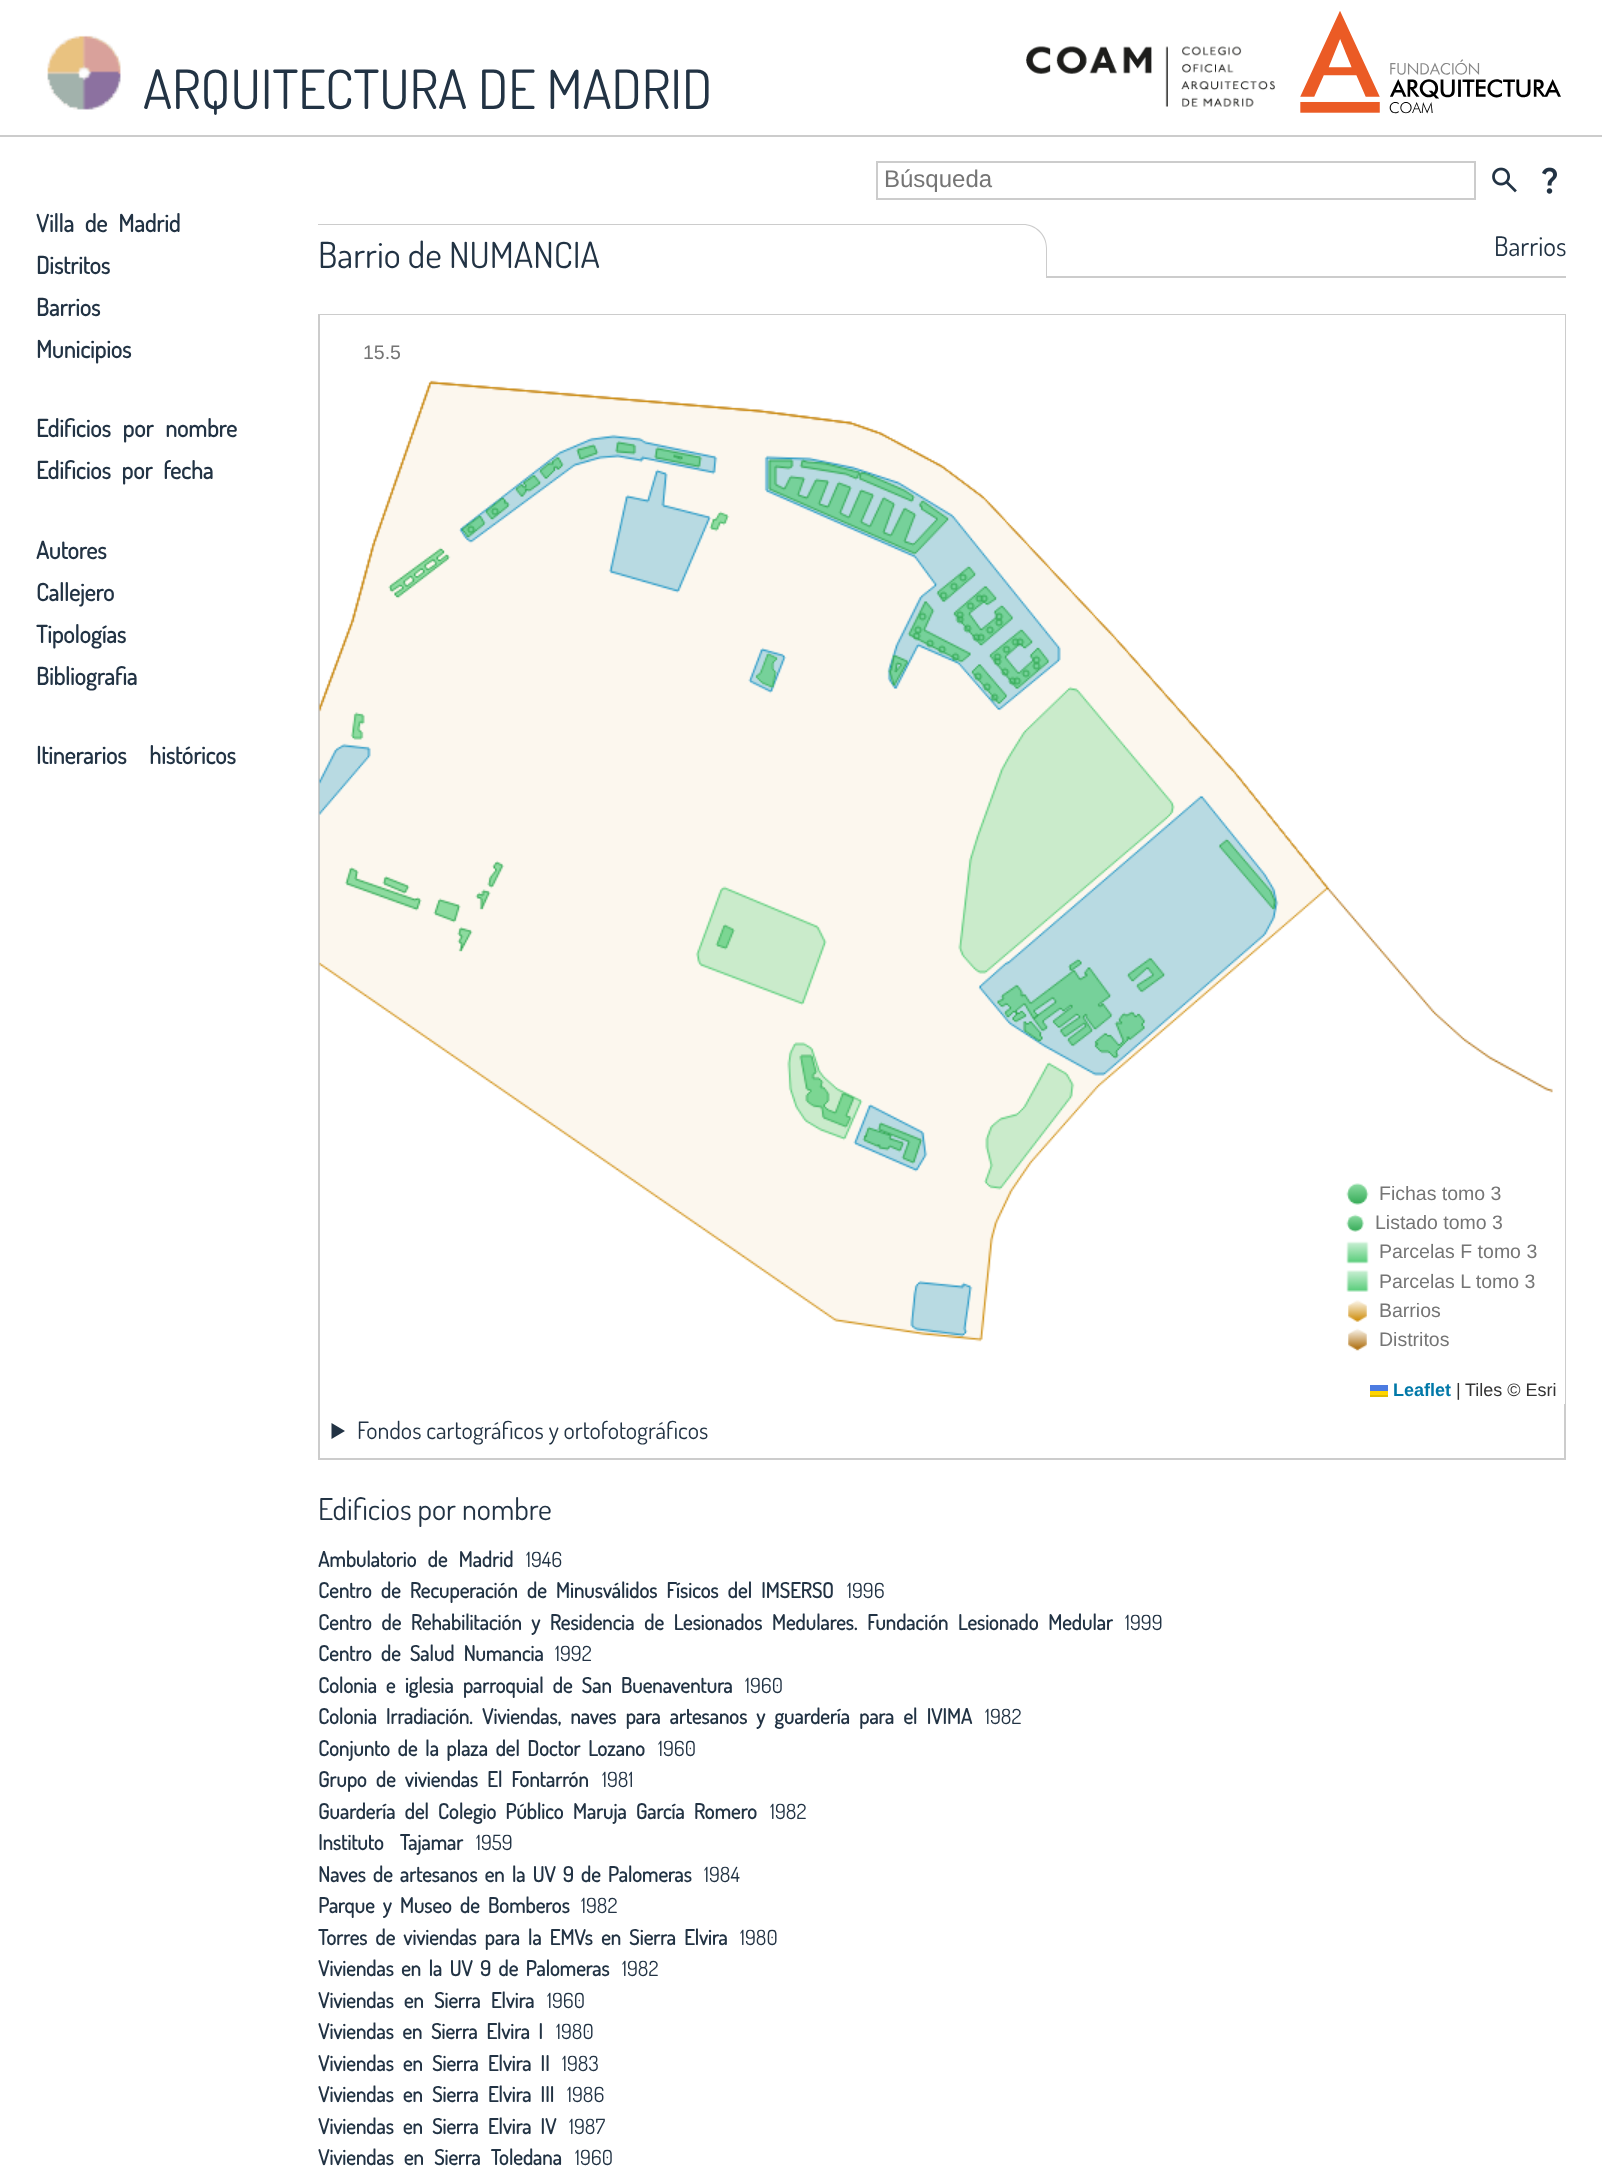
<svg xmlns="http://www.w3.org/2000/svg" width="1602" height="2177">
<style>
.a{font:54px Dosis;fill:#234}
.b{font:bold 24px Dosis;fill:#234}
.c{font:24px Liberation Sans;fill:#757575}
.d{font:36px Dosis;fill:#234}
.e{font:27px Dosis;fill:#234}
.f{font:19.5px Liberation Sans;fill:#757575}
.g{font:bold 18px Liberation Sans;fill:#0078a8}
.h{font:18px Liberation Sans;fill:#333}
.i{font:24px Dosis;fill:#234}
.j{font:30px Dosis;fill:#234}
.k{font:bold 21px Dosis;fill:#234}
.l{font:21px Dosis;fill:#234}
</style>
<rect width="100%" height="100%" fill="#fff"/>
<path fill="#ccc" d="M0 135h1602v2H0z"/>
<image href="1.png" x="47" y="35" width="74" height="75"/>
<image href="2.png" x="1026" y="46" width="249" height="61"/>
<image href="3.png" x="1300" y="11" width="261" height="103"/>
<path fill="none" stroke="#ccc" stroke-width="2" d="M877 162h598v37H877z"/>
<image href="4.png" x="1492" y="167" width="25" height="26"/>
<image href="5.png" x="1542" y="167" width="15" height="27"/>
<path fill="#ccc" fill-rule="evenodd" d="M318 224h705c13 0 24 10 24 24v30h-729zm0 1h705c12 0 23 10 23 23v30h-728z"/>
<path fill="#ccc" d="M1047 276h519v2H1047z"/>
<path fill="none" stroke="#ccc" stroke-width="2" d="M319 315h1246v1144H319z"/>
<path fill="#fff" d="M320 315h1245v1089H320z"/>
<image href="12.png" x="319" y="380" width="1234" height="962"/>
<image href="6.png" x="1346" y="1183" width="23" height="22"/>
<image href="7.png" x="1346" y="1214" width="18" height="18"/>
<image href="8.png" x="1346" y="1241" width="23" height="23"/>
<image href="9.png" x="1346" y="1270" width="23" height="22"/>
<image href="10.png" x="1348" y="1300" width="19" height="22"/>
<image href="11.png" x="1348" y="1328" width="19" height="23"/>
<path fill="#4c7be1" d="M1370 1385h18v6H1370z"/>
<path fill="#ffd500" d="M1370 1391h18v4H1370z"/>
<path fill="#e0bc00" d="M1370 1395h18v2H1370z"/>
<path fill="#234" d="M331.5 1423l13.5 8l-13.5 8z"/>
<text class="a" x="143" y="109">ARQUITECTURA DE MADRID</text>
<text class="b" x="36" y="232" word-spacing="6">Villa de Madrid</text>
<text class="b" x="36" y="274">Distritos</text>
<text class="b" x="36" y="316">Barrios</text>
<text class="b" x="36" y="358">Municipios</text>
<text class="b" x="36" y="437" word-spacing="7">Edificios por nombre</text>
<text class="b" x="36" y="479" word-spacing="6">Edificios por fecha</text>
<text class="b" x="36" y="559">Autores</text>
<text class="b" x="36" y="601">Callejero</text>
<text class="b" x="36" y="643">Tipologías</text>
<text class="b" x="36" y="685">Bibliografia</text>
<text class="b" x="36" y="764" word-spacing="18">Itinerarios históricos</text>
<text class="c" x="884" y="187">Búsqueda</text>
<text class="d" x="318" y="268">Barrio de NUMANCIA</text>
<text class="e" x="1494" y="256">Barrios</text>
<text class="f" x="363" y="359">15.5</text>
<text class="f" x="1379" y="1200">Fichas tomo 3</text>
<text class="f" x="1375" y="1229">Listado tomo 3</text>
<text class="f" x="1379" y="1258">Parcelas F tomo 3</text>
<text class="f" x="1379" y="1288">Parcelas L tomo 3</text>
<text class="f" x="1379" y="1317">Barrios</text>
<text class="f" x="1379" y="1346">Distritos</text>
<text class="g" x="1393" y="1396">Leaflet</text>
<text class="h" x="1456" y="1396">|</text>
<text class="h" x="1465" y="1396">Tiles © Esri</text>
<text class="i" x="357" y="1439">Fondos cartográficos y ortofotográficos</text>
<text class="j" x="318" y="1520">Edificios por nombre</text>
<text class="k" x="318" y="1567" word-spacing="7">Ambulatorio de Madrid</text>
<text class="l" x="526" y="1567">1946</text>
<text class="k" x="318" y="1598" word-spacing="5">Centro de Recuperación de Minusválidos Físicos del IMSERSO</text>
<text class="l" x="847" y="1598">1996</text>
<text class="k" x="318" y="1630" word-spacing="5.5">Centro de Rehabilitación y Residencia de Lesionados Medulares. Fundación Lesionado Medular</text>
<text class="l" x="1125" y="1630">1999</text>
<text class="k" x="318" y="1661" word-spacing="5">Centro de Salud Numancia</text>
<text class="l" x="555" y="1661">1992</text>
<text class="k" x="318" y="1693" word-spacing="5">Colonia e iglesia parroquial de San Buenaventura</text>
<text class="l" x="745" y="1693">1960</text>
<text class="k" x="318" y="1724" word-spacing="5">Colonia Irradiación. Viviendas, naves para artesanos y guardería para el IVIMA</text>
<text class="l" x="985" y="1724">1982</text>
<text class="k" x="318" y="1756" word-spacing="3.5">Conjunto de la plaza del Doctor Lozano</text>
<text class="l" x="658" y="1756">1960</text>
<text class="k" x="318" y="1787" word-spacing="5">Grupo de viviendas El Fontarrón</text>
<text class="l" x="602" y="1787">1981</text>
<text class="k" x="318" y="1819" word-spacing="5">Guardería del Colegio Público Maruja García Romero</text>
<text class="l" x="770" y="1819">1982</text>
<text class="k" x="318" y="1850" word-spacing="12">Instituto Tajamar</text>
<text class="l" x="476" y="1850">1959</text>
<text class="k" x="318" y="1882" word-spacing="3">Naves de artesanos en la UV 9 de Palomeras</text>
<text class="l" x="704" y="1882">1984</text>
<text class="k" x="318" y="1913" word-spacing="4">Parque y Museo de Bomberos</text>
<text class="l" x="581" y="1913">1982</text>
<text class="k" x="318" y="1945" word-spacing="4">Torres de viviendas para la EMVs en Sierra Elvira</text>
<text class="l" x="740" y="1945">1980</text>
<text class="k" x="318" y="1976" word-spacing="3.25">Viviendas en la UV 9 de Palomeras</text>
<text class="l" x="622" y="1976">1982</text>
<text class="k" x="318" y="2008" word-spacing="6">Viviendas en Sierra Elvira</text>
<text class="l" x="547" y="2008">1960</text>
<text class="k" x="318" y="2039" word-spacing="4.5">Viviendas en Sierra Elvira I</text>
<text class="l" x="556" y="2039">1980</text>
<text class="k" x="318" y="2071" word-spacing="5">Viviendas en Sierra Elvira II</text>
<text class="l" x="562" y="2071">1983</text>
<text class="k" x="318" y="2102" word-spacing="5">Viviendas en Sierra Elvira III</text>
<text class="l" x="567" y="2102">1986</text>
<text class="k" x="318" y="2134" word-spacing="5">Viviendas en Sierra Elvira IV</text>
<text class="l" x="569" y="2134">1987</text>
<text class="k" x="318" y="2165" word-spacing="6">Viviendas en Sierra Toledana</text>
<text class="l" x="575" y="2165">1960</text>
</svg>
